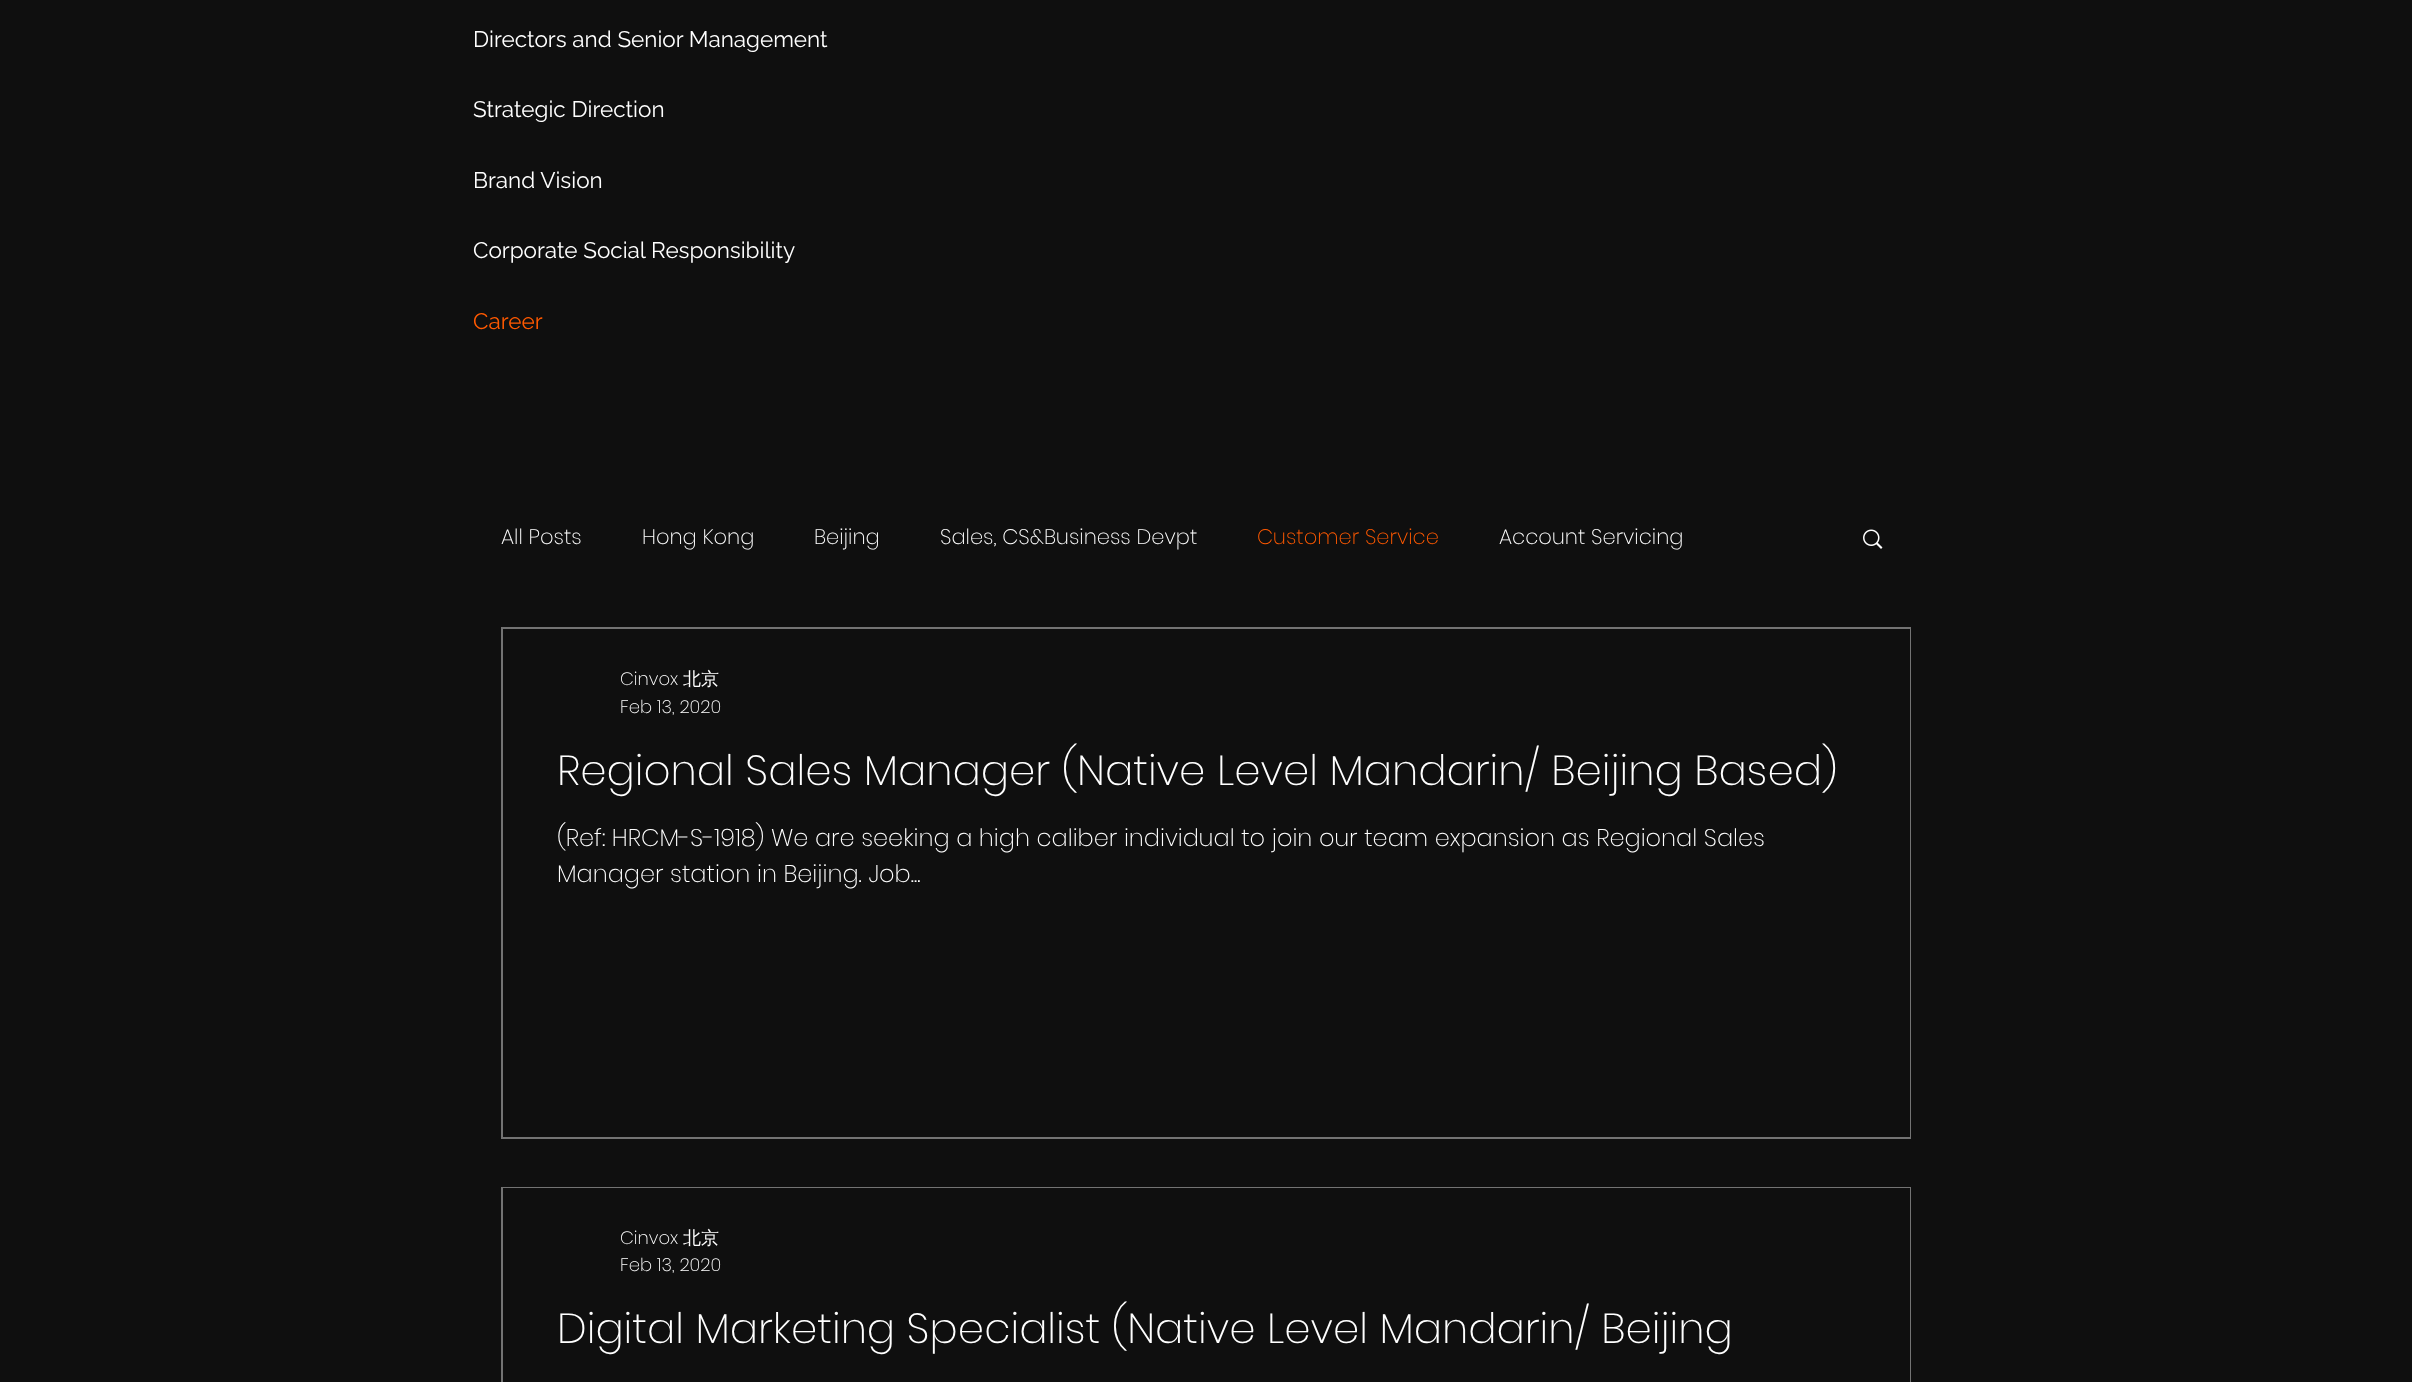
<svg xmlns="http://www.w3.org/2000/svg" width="2412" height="1382">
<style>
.a{font:22.5px Raleway;fill:#fff}
.b{font:22.5px Raleway;fill:#ff5900}
.c{font:200 21px Poppins;fill:#fff}
.d{font:200 21px Poppins;fill:#ff5900}
.e{font:200 18px Poppins;fill:#fff}
.f{font:500 18px WenQuanYi Zen Hei;fill:#fff}
.g{font:200 42px Poppins;fill:#fff}
.h{font:200 24px Poppins;fill:#fff}
</style>
<rect width="100%" height="100%" fill="#0f0f0f"/>
<image href="1.png" x="1863" y="529" width="20" height="20"/>
<path fill="none" stroke="#737373" stroke-width="2" d="M502 628h1408v510H502z"/>
<path fill="#0f0f0f" d="M1909 629h1v508H1909z"/>
<path fill="none" stroke="#737373" stroke-width="2" d="M502 1188h1408v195H502z"/>
<path fill="#0f0f0f" d="M503 1188h1407v194H503z"/>
<text class="a" x="473" y="47">Directors and Senior Management</text>
<text class="a" x="473" y="117">Strategic Direction</text>
<text class="a" x="473" y="188">Brand Vision</text>
<text class="a" x="473" y="258">Corporate Social Responsibility</text>
<text class="b" x="473" y="329">Career</text>
<text class="c" x="501" y="544">All Posts</text>
<text class="c" x="642" y="544">Hong Kong</text>
<text class="c" x="814" y="544">Beijing</text>
<text class="c" x="940" y="544">Sales, CS&amp;Business Devpt</text>
<text class="d" x="1257" y="544">Customer Service</text>
<text class="c" x="1499" y="544">Account Servicing</text>
<text class="e" x="620" y="685">Cinvox</text>
<text class="f" x="683" y="685">北京</text>
<text class="e" x="620" y="713">Feb 13, 2020</text>
<text class="g" x="557" y="785">Regional Sales Manager (Native Level Mandarin/ Beijing Based)</text>
<text class="h" x="557" y="846">(Ref: HRCM-S-1918) We are seeking a high caliber individual to join our team expansion as Regional Sales</text>
<text class="h" x="557" y="882">Manager station in Beijing. Job...</text>
<text class="e" x="620" y="1244">Cinvox</text>
<text class="f" x="683" y="1244">北京</text>
<text class="e" x="620" y="1271">Feb 13, 2020</text>
<text class="g" x="557" y="1343">Digital Marketing Specialist (Native Level Mandarin/ Beijing</text>
</svg>
